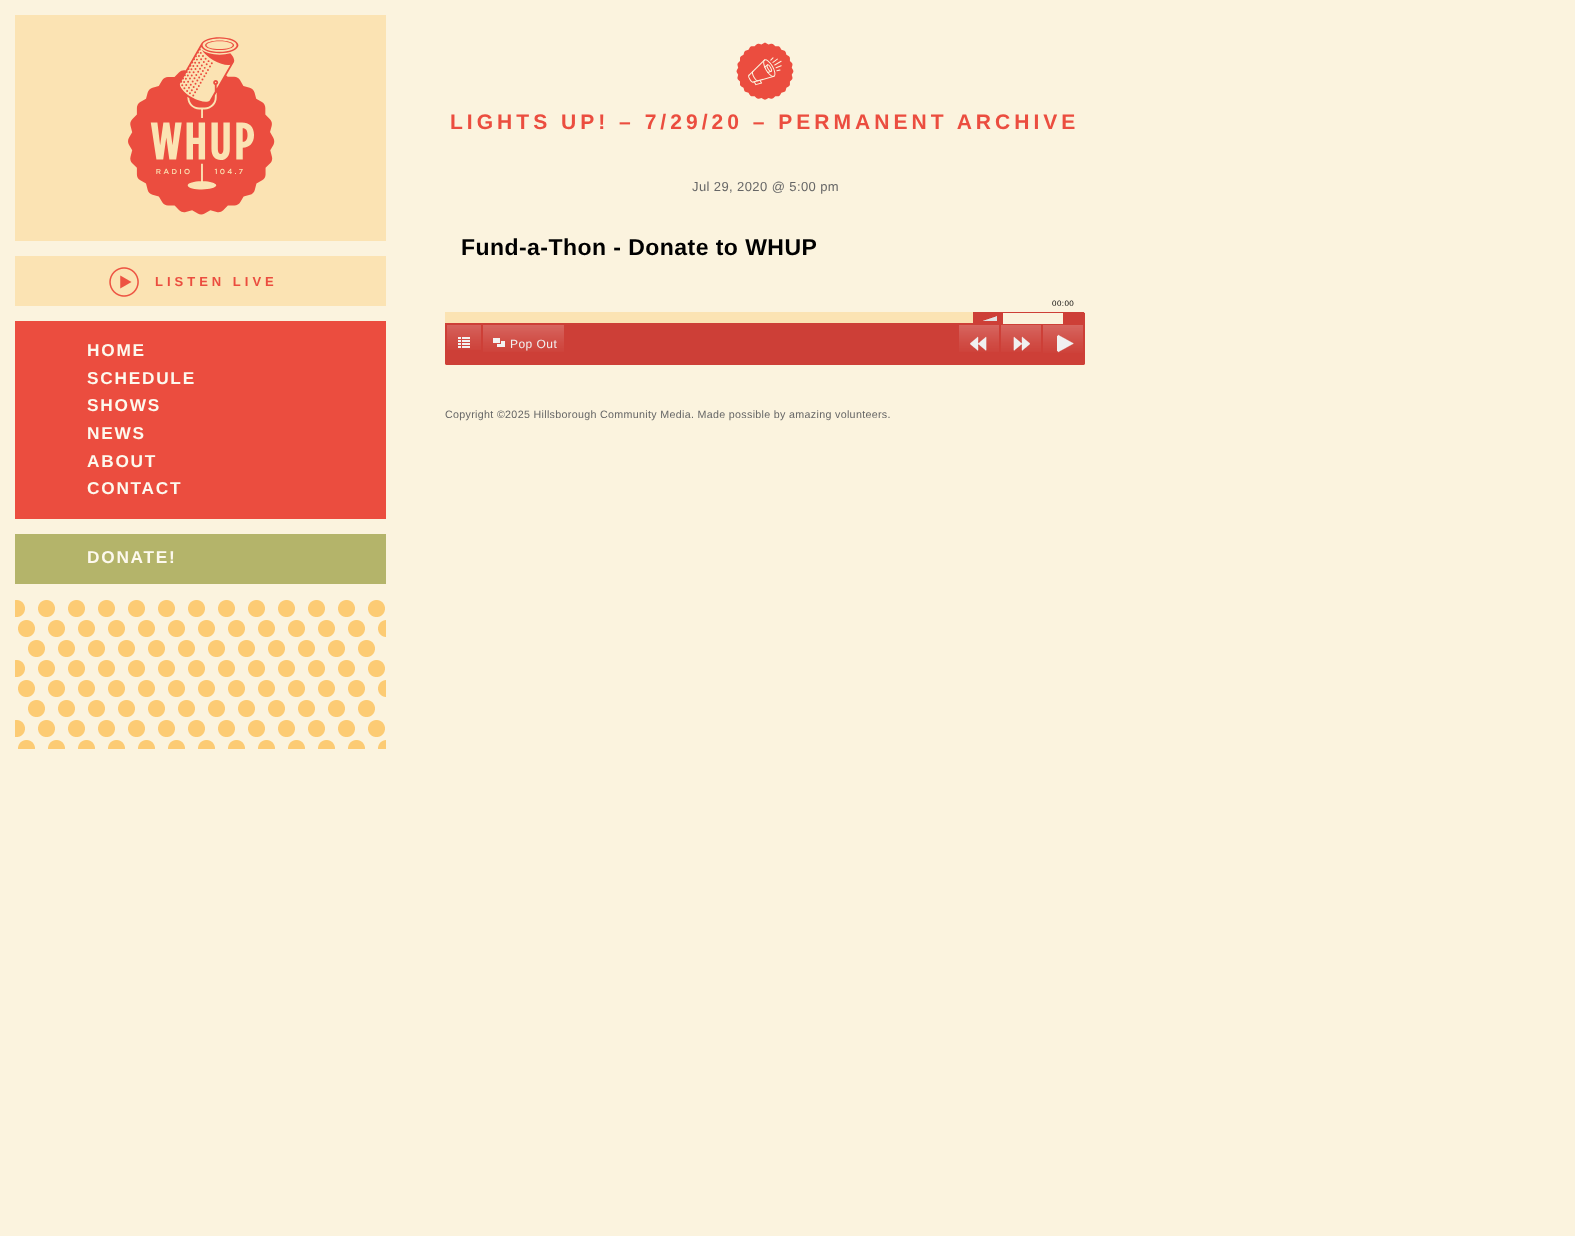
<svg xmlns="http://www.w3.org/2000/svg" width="1575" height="1236">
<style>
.a{font:bold 13px Liberation Sans;letter-spacing:4px;fill:#eb4d3f}
.b{font:bold 17.25px Liberation Sans;letter-spacing:1.75px;fill:#fdf9ee}
.c{font:bold 21.05px Liberation Sans;letter-spacing:4px;fill:#eb4d3f}
.d{font:13px Liberation Sans;letter-spacing:0.4px;fill:#666}
.e{font:bold 23px Liberation Sans;letter-spacing:0.45px;fill:#000}
.f{font:8px Liberation Sans;letter-spacing:0.45px;fill:#000}
.g{font:12px Liberation Sans;letter-spacing:0.45px;fill:#f0f0f0}
.h{font:10.7px Liberation Sans;letter-spacing:0.32px;fill:#666}
</style>
<rect width="100%" height="100%" fill="#fbf3de"/>
<path fill="#fbe3b3" d="M15 15h371v226H15z"/>
<image href="1.png" x="128" y="37" width="147" height="178"/>
<path fill="#fbe3b3" d="M15 256h371v50H15z"/>
<image href="2.png" x="109" y="267" width="30" height="30"/>
<path fill="#eb4d3f" d="M15 321h371v198H15z"/>
<path fill="#b4b46a" d="M15 534h371v50H15z"/>
<image href="3.png" x="15" y="600" width="371" height="149"/>
<image href="4.png" x="736" y="42" width="58" height="58"/>
<path fill="#fbe3b3" d="M445 312h528v11H445z"/>
<path fill="#cd3f37" d="M445 323h640v40c0 1-1 2-2 2h-636c-1 0-2-1-2-2z"/>
<path fill="#cd3f37" fill-rule="evenodd" d="M445 323v40c0 1 1 2 2 2h636c1 0 2-1 2-2v-40zm2 2v38h636v-38z"/>
<image href="5.png" x="447" y="325" width="34" height="25"/>
<image href="6.png" x="483" y="325" width="81" height="27"/>
<image href="7.png" x="959" y="325" width="40" height="27"/>
<image href="8.png" x="1001" y="325" width="40" height="27"/>
<image href="9.png" x="1043" y="325" width="40" height="28"/>
<path fill="#cd3f37" d="M973 312h110c1 0 2 1 2 2v11h-112z"/>
<path fill="#cd3f37" d="M1083 312h1v1H1083z"/>
<path fill="#cd3f37" d="M1084 313h1v1H1084z"/>
<image href="10.png" x="983" y="316" width="14" height="5"/>
<path fill="#fbf3dd" d="M1003 313h60v11H1003z"/>
<text class="a" x="155" y="286">LISTEN LIVE</text>
<text class="b" x="87" y="356">HOME</text>
<text class="b" x="87" y="384">SCHEDULE</text>
<text class="b" x="87" y="411">SHOWS</text>
<text class="b" x="87" y="439">NEWS</text>
<text class="b" x="87" y="467">ABOUT</text>
<text class="b" x="87" y="494">CONTACT</text>
<text class="b" x="87" y="563">DONATE!</text>
<text class="c" x="450" y="129">LIGHTS UP! – 7/29/20 – PERMANENT ARCHIVE</text>
<text class="d" x="692" y="191">Jul 29, 2020 @ 5:00 pm</text>
<text class="e" x="461" y="255">Fund-a-Thon - Donate to WHUP</text>
<text class="f" x="1052" y="306">00:00</text>
<text class="g" x="510" y="348">Pop Out</text>
<text class="h" x="445" y="418">Copyright ©2025 Hillsborough Community Media. Made possible by amazing volunteers.</text>
</svg>
